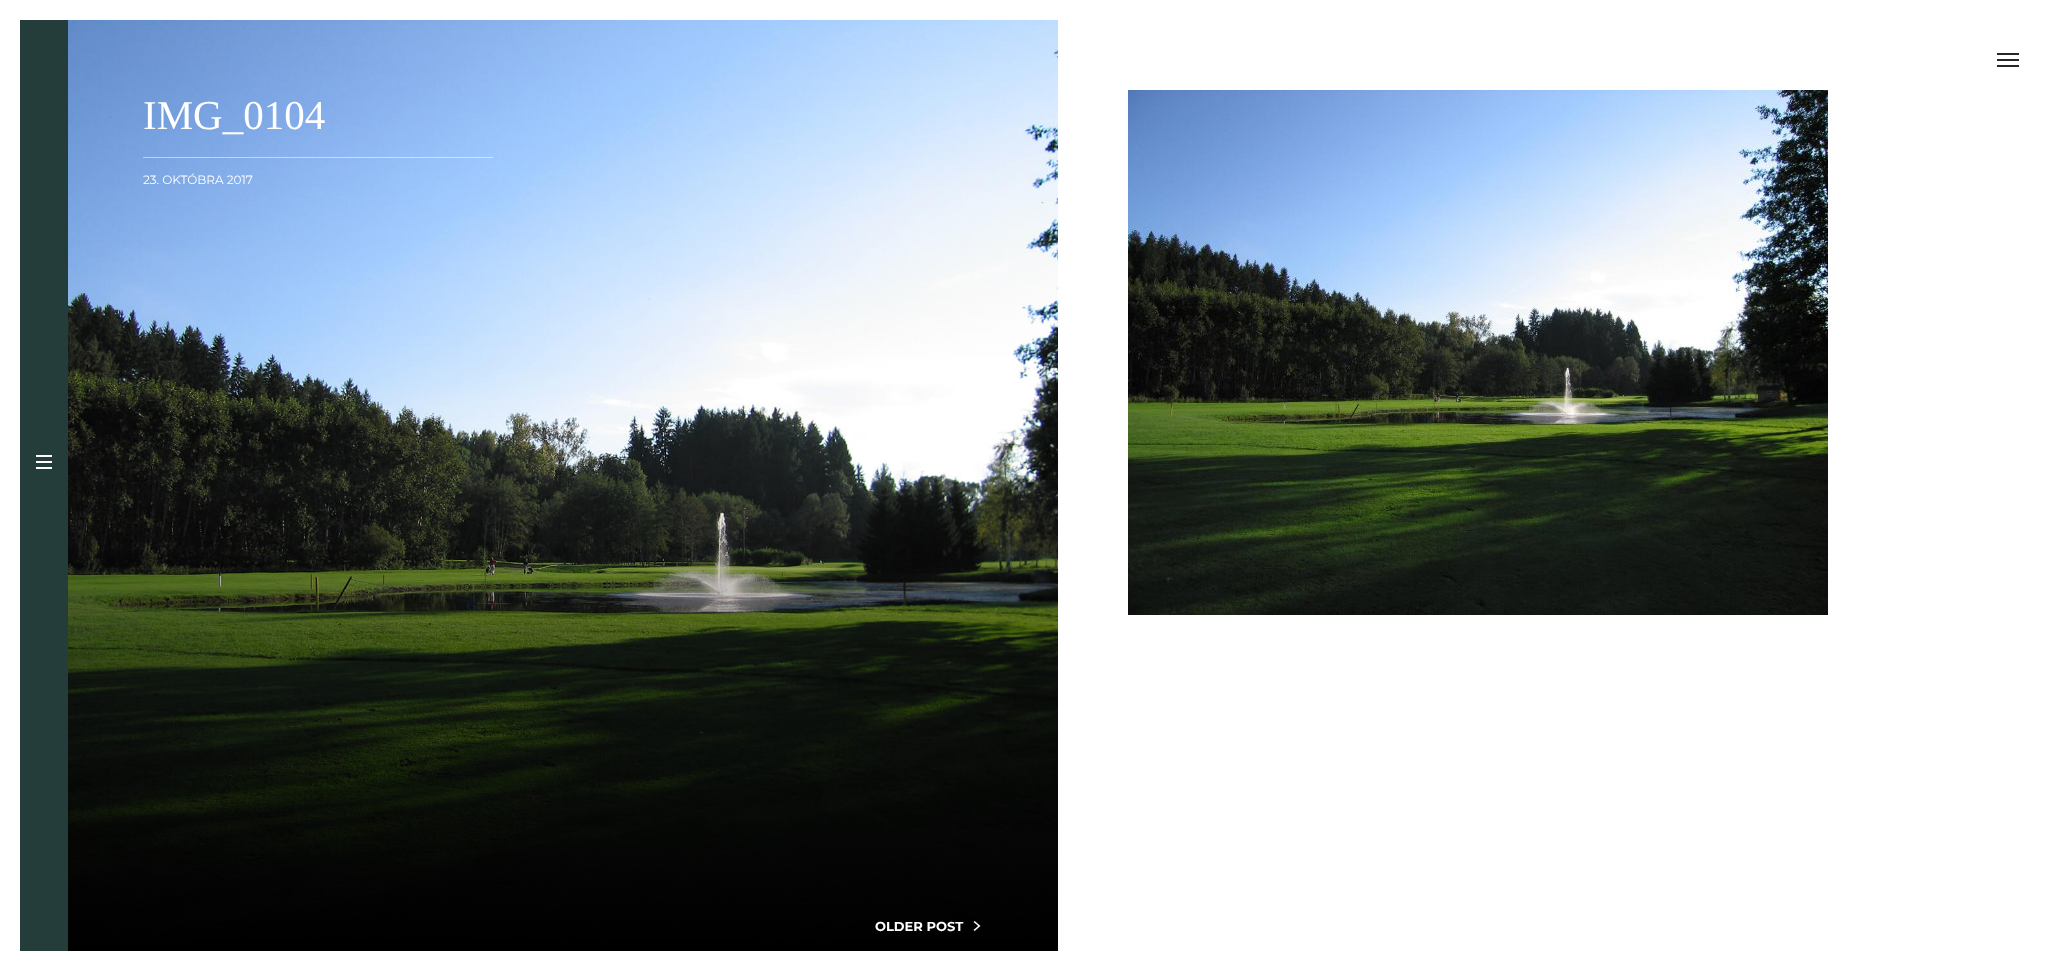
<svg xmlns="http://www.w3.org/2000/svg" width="2068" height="971">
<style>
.a{font:41px Liberation Serif;fill:#fff}
.b{font:12px Montserrat;fill:#fff}
.c{font:bold 13px Montserrat;fill:#fff}
</style>
<rect width="100%" height="100%" fill="#fff"/>
<path fill="#253d3a" d="M20 20h48v931H20z"/>
<path fill="#fff" d="M36 455h16v2H36z"/>
<path fill="#fff" d="M36 461h16v2H36z"/>
<path fill="#fff" d="M36 467h16v2H36z"/>
<path fill="#262626" d="M1997 53h22v2H1997z"/>
<path fill="#262626" d="M1997 59h22v2H1997z"/>
<path fill="#262626" d="M1997 65h22v2H1997z"/>
<image href="1.png" x="68" y="20" width="990" height="931"/>
<path fill="#ffffff80" d="M143 157h350v1H143z"/>
<image href="2.png" x="973" y="921" width="8" height="10"/>
<image href="3.png" x="1128" y="90" width="700" height="525"/>
<text class="a" x="143" y="129">IMG_0104</text>
<text class="b" x="143" y="184">23. OKTÓBRA 2017</text>
<text class="c" x="875" y="931">OLDER POST</text>
</svg>
